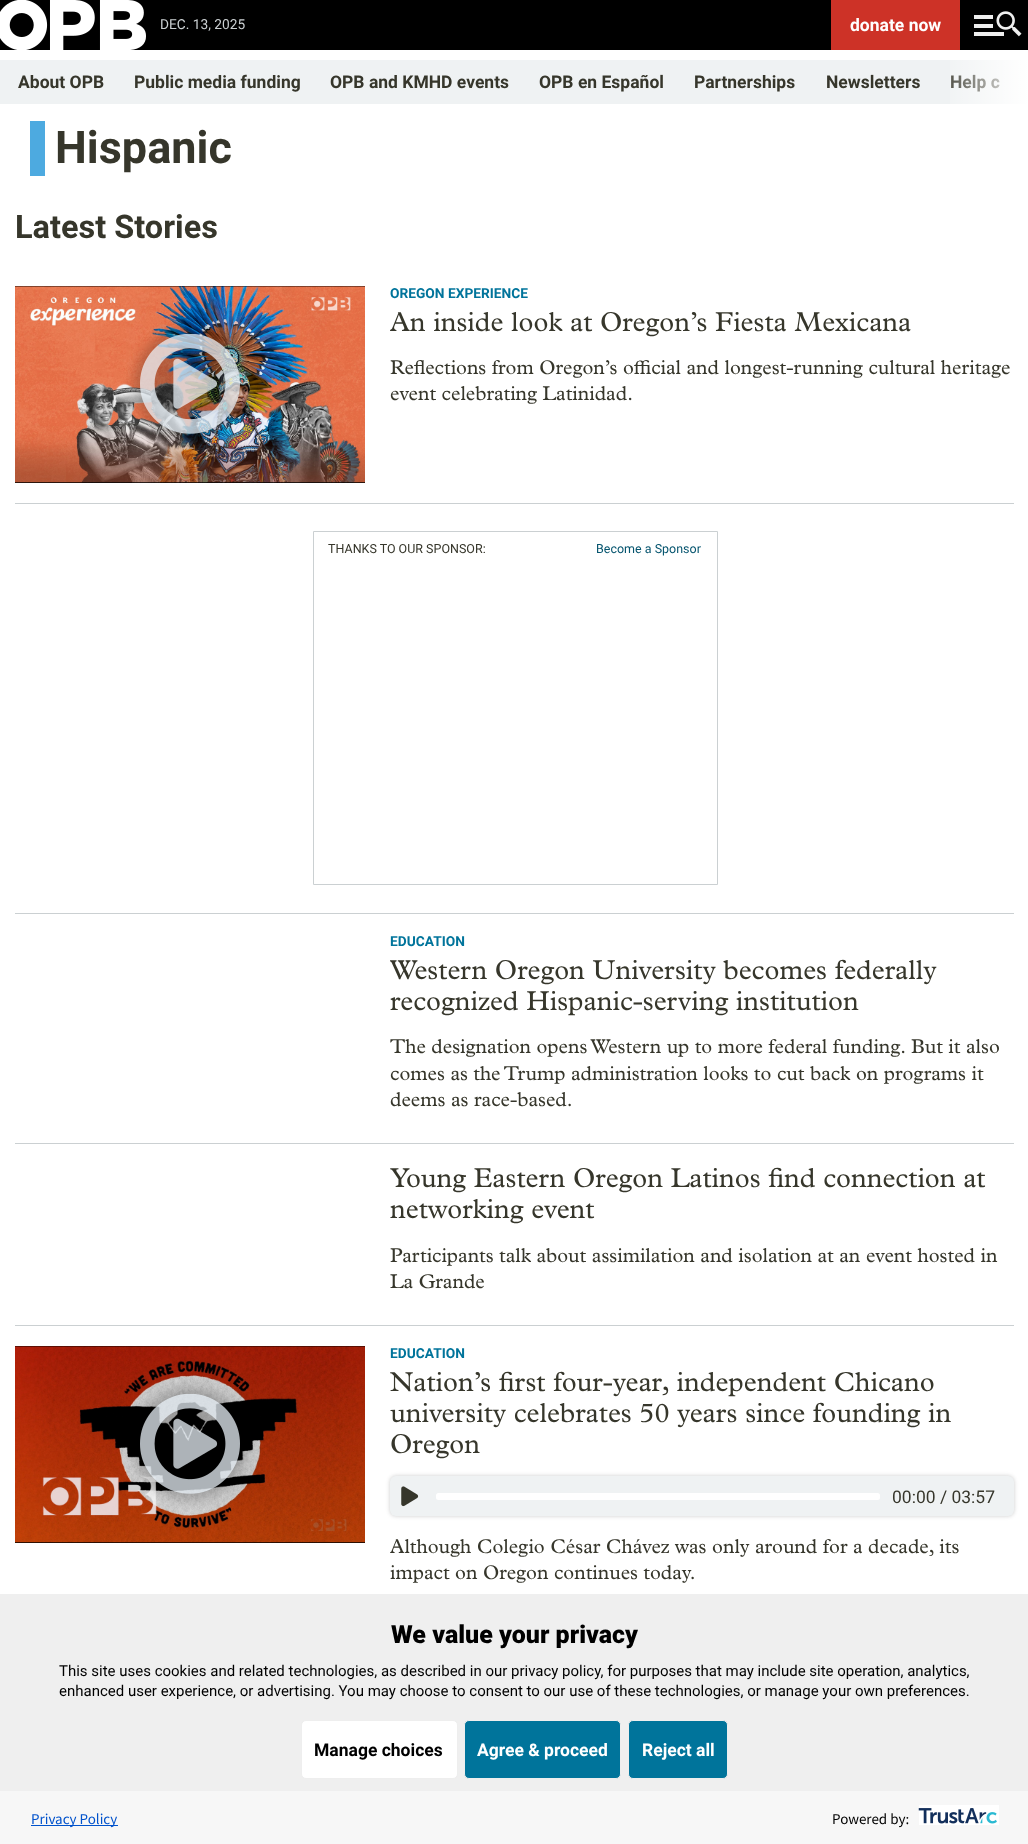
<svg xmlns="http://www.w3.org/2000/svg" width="1028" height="1844">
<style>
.a{font:13.75px Roboto;fill:#cbd0d2}
.b{font:bold 17.5px Roboto;fill:#fff}
.c{font:bold 17.5px Roboto;fill:#36362b}
.d{font:bold 45px Roboto;fill:#36362b}
.e{font:bold 32.5px Roboto;fill:#36362b}
.f{font:bold 13.75px Roboto;fill:#00749b}
.g{font:27.5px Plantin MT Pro;fill:#36362b}
.h{font:20px Plantin MT Pro;fill:#36362b}
.i{font:12.5px Roboto;fill:#36362b}
.j{font:12.5px Roboto;fill:#05546e}
.k{font:17.5px Roboto;fill:#36362b}
.l{font:900 25px Roboto;fill:#000}
.m{font:15px Roboto;fill:#000}
.n{font:bold 17.5px Roboto;fill:#000}
.o{font:15px Source Sans Pro;fill:#0052cc}
.p{font:15px Source Sans Pro;fill:#000}
</style>
<defs>
<clipPath id="clip1"><path d="M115 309h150v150h-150zm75 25c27.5 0 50 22.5 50 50c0 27.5-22.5 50-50 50c-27.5 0-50-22.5-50-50c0-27.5 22.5-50 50-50z" clip-rule="evenodd"/></clipPath>
<clipPath id="clip2"><path d="M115 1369h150v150h-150zm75 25c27.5 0 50 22.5 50 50c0 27.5-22.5 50-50 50c-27.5 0-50-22.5-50-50c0-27.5 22.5-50 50-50z" clip-rule="evenodd"/></clipPath>
<linearGradient id="g1" gradientUnits="userSpaceOnUse" x1="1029" y1="82" x2="935" y2="82"><stop offset="0" stop-color="#fff"/><stop offset="1" stop-color="#fff" stop-opacity="0"/></linearGradient>
</defs>
<rect width="100%" height="100%" fill="#000"/>
<image href="1.png" x="0" y="0" width="146" height="50"/>
<path fill="#cd3227" d="M831 0h129v50H831z"/>
<image href="2.png" x="974" y="11" width="48" height="26"/>
<path fill="#fff" d="M0 50h1028v1544H0z"/>
<path fill="#eff2f3" d="M0 60h1028v44H0z"/>
<path fill="#4daae0" d="M30 121h15v55H30z"/>
<path fill="#000" d="M15 286h350v197H15z"/>
<image href="3.png" x="15" y="286" width="350" height="197"/>
<g clip-path="url(#clip1)">
<rect fill="#00000036" filter="blur(6px)" x="134" y="328" width="112" height="112" rx="56"/>
</g>
<circle fill="#00000036" cx="190" cy="384" r="50"/>
<image href="4.png" x="140" y="334" width="100" height="100"/>
<path fill="#cbd0d2" d="M15 503h999v1H15z"/>
<path fill="none" stroke="#cbd0d2" d="M313.5 531.5h404v353H313.5z"/>
<path fill="#cbd0d2" d="M15 913h999v1H15z"/>
<path fill="#cbd0d2" d="M15 1143h999v1H15z"/>
<path fill="#cbd0d2" d="M15 1325h999v1H15z"/>
<path fill="#000" d="M15 1346h350v197H15z"/>
<image href="5.png" x="15" y="1346" width="350" height="197"/>
<g clip-path="url(#clip2)">
<rect fill="#00000036" filter="blur(6px)" x="134" y="1388" width="112" height="112" rx="56"/>
</g>
<circle fill="#00000036" cx="190" cy="1444" r="50"/>
<image href="6.png" x="140" y="1394" width="100" height="100"/>
<rect fill="#00000033" filter="blur(2px)" x="390" y="1476" width="624" height="40" rx="6"/>
<rect fill="#eff2f3" x="390" y="1476" width="624" height="40" rx="6"/>
<image href="7.png" x="401" y="1486" width="18" height="21"/>
<rect fill="#fff" x="436" y="1493" width="444" height="7" rx="2.5"/>
<path fill="#efefef" d="M0 1594h1028v197H0z"/>
<rect fill="#fff" stroke="#eee" x="301.5" y="1720.5" width="156" height="58" rx="4.5"/>
<rect fill="#00749b" stroke="#eee" x="464.5" y="1720.5" width="156" height="58" rx="4.5"/>
<rect fill="#00749b" stroke="#eee" x="628.5" y="1720.5" width="99" height="58" rx="4.5"/>
<path fill="#f7f7f7" d="M0 1791h1028v53H0z"/>
<path fill="#0052cc" d="M31 1825h87v1H31z"/>
<image href="8.png" x="918" y="1805" width="81" height="20"/>
<text class="a" x="160" y="29">DEC. 13, 2025</text>
<text class="b" x="850" y="31">donate now</text>
<text class="c" x="18" y="88">About OPB</text>
<text class="c" x="134" y="88">Public media funding</text>
<text class="c" x="330" y="88">OPB and KMHD events</text>
<text class="c" x="539" y="88">OPB en Español</text>
<text class="c" x="694" y="88">Partnerships</text>
<text class="c" x="826" y="88">Newsletters</text>
<text class="c" x="950" y="88">Help c</text>
<path fill="url(#g1)" d="M950 60h78v44H950z"/>
<text class="d" x="55" y="163">Hispanic</text>
<text class="e" x="15" y="238">Latest Stories</text>
<text class="f" x="390" y="298">OREGON EXPERIENCE</text>
<text class="g" x="390" y="331">An inside look at Oregon’s Fiesta Mexicana</text>
<text class="h" x="390" y="374">Reflections from Oregon’s official and longest-running cultural heritage</text>
<text class="h" x="390" y="400">event celebrating Latinidad.</text>
<text class="i" x="328" y="553">THANKS TO OUR SPONSOR:</text>
<text class="j" x="596" y="553">Become a Sponsor</text>
<text class="f" x="390" y="946">EDUCATION</text>
<text class="g" x="390" y="979">Western Oregon University becomes federally</text>
<text class="g" x="390" y="1010">recognized Hispanic-serving institution</text>
<text class="h" x="390" y="1053">The designation opens Western up to more federal funding. But it also</text>
<text class="h" x="390" y="1080">comes as the Trump administration looks to cut back on programs it</text>
<text class="h" x="390" y="1106">deems as race-based.</text>
<text class="g" x="390" y="1187">Young Eastern Oregon Latinos find connection at</text>
<text class="g" x="390" y="1218">networking event</text>
<text class="h" x="390" y="1262">Participants talk about assimilation and isolation at an event hosted in</text>
<text class="h" x="390" y="1288">La Grande</text>
<text class="f" x="390" y="1358">EDUCATION</text>
<text class="g" x="390" y="1391">Nation’s first four-year, independent Chicano</text>
<text class="g" x="390" y="1422">university celebrates 50 years since founding in</text>
<text class="g" x="390" y="1453">Oregon</text>
<text class="k" x="892" y="1503">00:00 / 03:57</text>
<text class="h" x="390" y="1553">Although Colegio César Chávez was only around for a decade, its</text>
<text class="h" x="390" y="1579">impact on Oregon continues today.</text>
<text class="l" x="391" y="1643">We value your privacy</text>
<text class="m" x="59" y="1676">This site uses cookies and related technologies, as described in our privacy policy, for purposes that may include site operation, analytics,</text>
<text class="m" x="59" y="1696">enhanced user experience, or advertising. You may choose to consent to our use of these technologies, or manage your own preferences.</text>
<text class="n" x="314" y="1756">Manage choices</text>
<text class="b" x="477" y="1756">Agree &amp; proceed</text>
<text class="b" x="642" y="1756">Reject all</text>
<text class="o" x="31" y="1824">Privacy Policy</text>
<text class="p" x="832" y="1824">Powered by:</text>
</svg>
